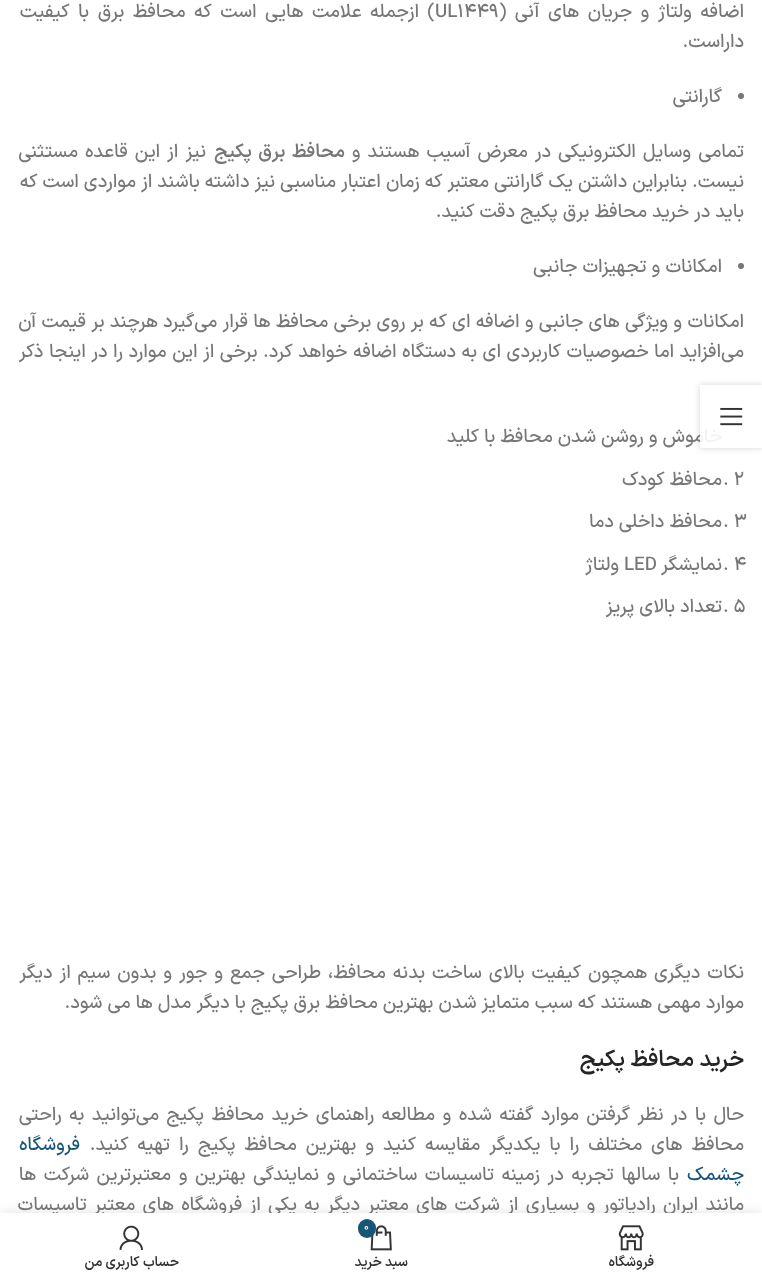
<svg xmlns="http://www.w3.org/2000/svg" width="762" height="1281">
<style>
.a{font:500 18.75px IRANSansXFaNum;direction:rtl;fill:#777}
.b{font:500 18.75px IRANSansXFaNum;fill:#777}
.c{font:600 18.75px IRANSansXFaNum;direction:rtl;fill:#777}
.d{font:600 22.5px IRANSansXFaNum;direction:rtl;fill:#242424}
.e{font:500 18.75px IRANSansXFaNum;direction:rtl;fill:#175676}
.f{font:600 13.75px IRANSansXFaNum;direction:rtl;fill:#333}
.g{font:11px IRANSansXFaNum;fill:#fff}
</style>
<defs>
<clipPath id="clip1"><path d="M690 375h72v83h-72zm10 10h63v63h-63z" clip-rule="evenodd"/></clipPath>
</defs>
<rect width="100%" height="100%" fill="#fff"/>
<circle fill="#777" cx="741" cy="96" r="3"/>
<circle fill="#777" cx="741" cy="266" r="3"/>
<g clip-path="url(#clip1)">
<path fill="#0000002b" filter="blur(3px)" d="M700 385h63v63H700z"/>
</g>
<image href="1.png" x="720" y="407" width="23" height="19"/>
<path fill="#0000001f" filter="blur(5.5px)" d="M0 1213h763v68H0z"/>
<text class="a" x="744" y="17" word-spacing="3.5">اضافه ولتاژ و جریان های آنی (</text>
<text class="b" x="435" y="17">UL1449</text>
<text class="a" x="435" y="17" word-spacing="3.5">) ازجمله علامت هایی است که محافظ برق با کیفیت</text>
<text class="a" x="744" y="47">داراست.</text>
<text class="a" x="722" y="102">گارانتی</text>
<text class="a" x="744" y="157" word-spacing="2">تمامی وسایل الکترونیکی در معرض آسیب هستند و</text>
<text class="c" x="345" y="157" word-spacing="2">محافظ برق پکیج</text>
<text class="a" x="206" y="157" word-spacing="2">نیز از این قاعده مستثنی</text>
<text class="a" x="744" y="187">نیست. بنابراین داشتن یک گارانتی معتبر که زمان اعتبار مناسبی نیز داشته باشند از مواردی است که</text>
<text class="a" x="744" y="217">باید در خرید محافظ برق پکیج دقت کنید.</text>
<text class="a" x="722" y="272">امکانات و تجهیزات جانبی</text>
<text class="a" x="744" y="327" word-spacing="0.2">امکانات و ویژگی های جانبی و اضافه ای که بر روی برخی محافظ ها قرار می‌گیرد هرچند بر قیمت آن</text>
<text class="a" x="744" y="357" word-spacing="0.5">می‌افزاید اما خصوصیات کاربردی ای به دستگاه اضافه خواهد کرد. برخی از این موارد را در اینجا ذکر</text>
<text class="a" x="722" y="442">خاموش و روشن شدن محافظ با کلید</text>
<text class="b" x="723" y="485">. 2</text>
<text class="a" x="722" y="485">محافظ کودک</text>
<text class="b" x="723" y="527">. 3</text>
<text class="a" x="722" y="527">محافظ داخلی دما</text>
<text class="b" x="723" y="570">. 4</text>
<text class="a" x="722" y="570">نمایشگر</text>
<text class="b" x="624" y="570">LED</text>
<text class="a" x="619" y="570">ولتاژ</text>
<text class="b" x="723" y="612">. 5</text>
<text class="a" x="722" y="612">تعداد بالای پریز</text>
<text class="a" x="744" y="978" word-spacing="1.9">نکات دیگری همچون کیفیت بالای ساخت بدنه محافظ، طراحی جمع و جور و بدون سیم از دیگر</text>
<text class="a" x="744" y="1008">موارد مهمی هستند که سبب متمایز شدن بهترین محافظ برق پکیج با دیگر مدل ها می شود.</text>
<text class="d" x="744" y="1066">خرید محافظ پکیج</text>
<text class="a" x="744" y="1120" word-spacing="2.4">حال با در نظر گرفتن موارد گفته شده و مطالعه راهنمای خرید محافظ پکیج می‌توانید به راحتی</text>
<text class="a" x="744" y="1150" word-spacing="3.9">محافظ های مختلف را با یکدیگر مقایسه کنید و بهترین محافظ پکیج را تهیه کنید.</text>
<text class="e" x="80" y="1150">فروشگاه</text>
<text class="e" x="744" y="1180">چشمک</text>
<text class="a" x="679" y="1180" word-spacing="2.5">با سالها تجربه در زمینه تاسیسات ساختمانی و نمایندگی بهترین و معتبرترین شرکت ها</text>
<text class="a" x="744" y="1210" word-spacing="2.25">مانند ایران رادیاتور و بسیاری از شرکت های معتبر دیگر به یکی از فروشگاه های معتبر تاسیسات</text>
<path fill="#ffffffe6" d="M700 428h62v20H700z"/>
<path fill="#fff" d="M0 1213h762v68H0z"/>
<image href="2.png" x="618" y="1225" width="26" height="26"/>
<text class="f" x="654" y="1266">فروشگاه</text>
<image href="3.png" x="370" y="1225" width="22" height="26"/>
<rect fill="#175676" x="358" y="1219" width="18" height="19" rx="9"/>
<text class="g" x="364" y="1230">0</text>
<text class="f" x="408" y="1266">سبد خرید</text>
<image href="4.png" x="119" y="1225" width="24" height="25"/>
<text class="f" x="179" y="1266">حساب کاربری من</text>
</svg>
